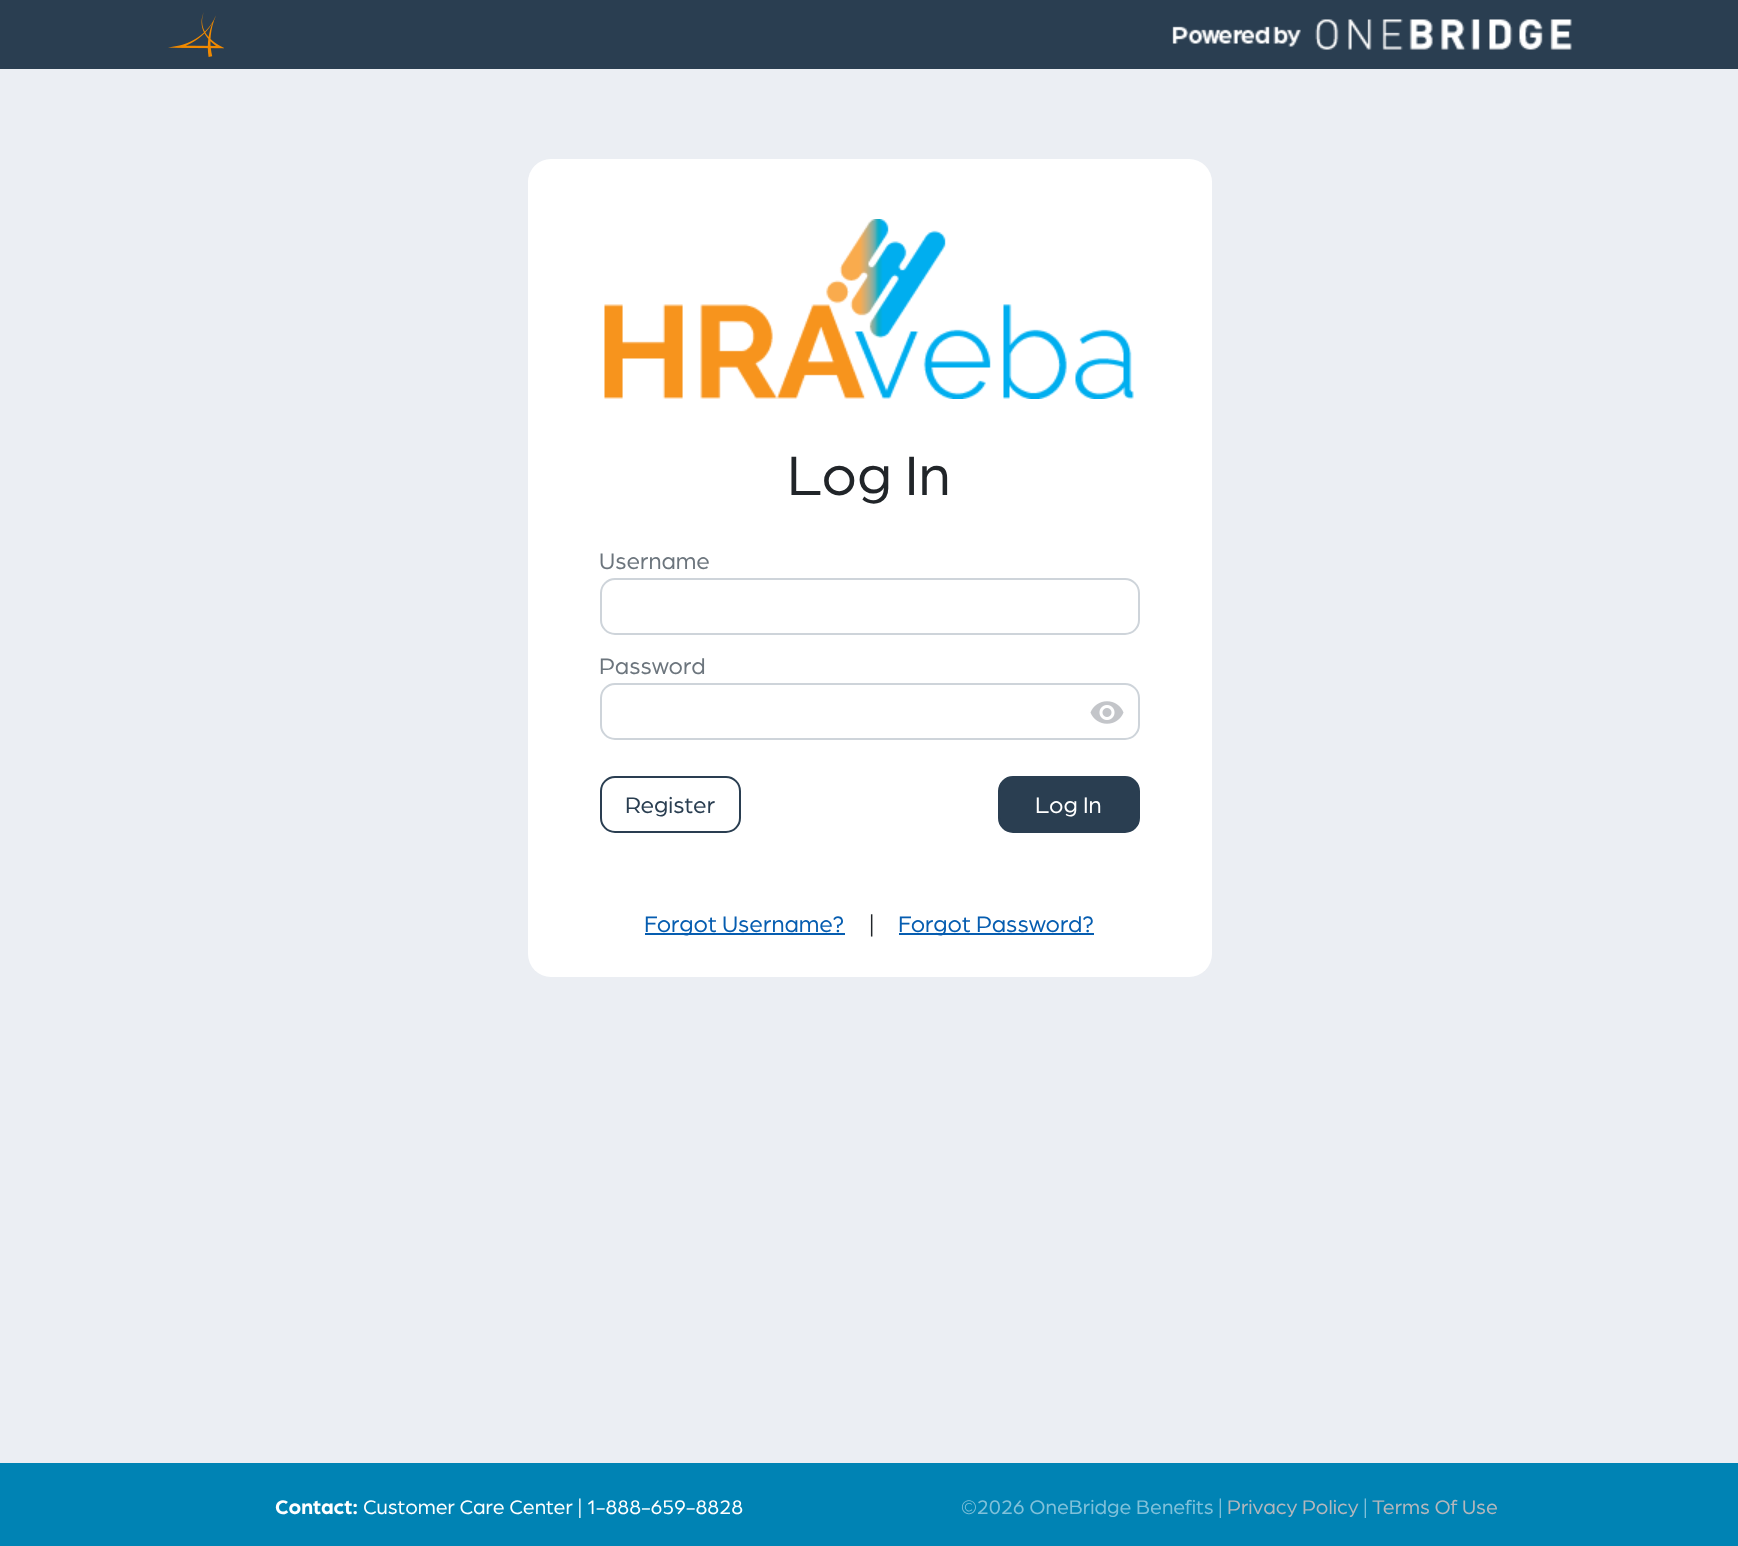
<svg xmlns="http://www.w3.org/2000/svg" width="1738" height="1546">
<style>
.a{font:59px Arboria;fill:#212529}
.b{font:24px Arboria;fill:#6c757d}
.c{font:24px Arboria;fill:#2a3e51}
.d{font:24px Arboria;fill:#fff}
.e{font:24px Arboria;fill:#065db0}
.f{font:24px Arboria;fill:#212529}
.g{font:bold 21px Arboria;fill:#fff}
.h{font:21px Arboria;fill:#fff}
.i{font:21px Arboria;fill:#80c1da}
.j{font:21px Arboria;fill:#b4b7bc}
</style>
<rect width="100%" height="100%" fill="#ebeef3"/>
<path fill="#2a3e51" d="M0 0h1738v69H0z"/>
<image href="1.png" x="168" y="12" width="56" height="45"/>
<image href="2.png" x="1172" y="19" width="400" height="31"/>
<rect fill="#fff" x="528" y="159" width="684" height="818" rx="23"/>
<image href="3.png" x="604" y="219" width="530" height="180"/>
<rect fill="none" stroke="#ced4da" stroke-width="2" x="601" y="579" width="538" height="55" rx="14"/>
<rect fill="none" stroke="#ced4da" stroke-width="2" x="601" y="684" width="538" height="55" rx="14"/>
<image href="4.png" x="1090" y="701" width="34" height="23"/>
<rect fill="none" stroke="#2a3e51" stroke-width="2" x="601" y="777" width="139" height="55" rx="14"/>
<rect fill="#2a3e51" stroke="#2a3e51" stroke-width="2" x="999" y="777" width="140" height="55" rx="14"/>
<path fill="#065db0" d="M645 933h200v2H645z"/>
<path fill="#065db0" d="M899 933h195v2H899z"/>
<path fill="#0083b4" d="M0 1463h1738v83H0z"/>
<text class="a" x="787" y="495">Log In</text>
<text class="b" x="599" y="569">Username</text>
<text class="b" x="599" y="674">Password</text>
<text class="c" x="625" y="813">Register</text>
<text class="d" x="1035" y="813">Log In</text>
<text class="e" x="644" y="932">Forgot Username?</text>
<text class="f" x="869" y="932">|</text>
<text class="e" x="898" y="932">Forgot Password?</text>
<text class="g" x="275" y="1514">Contact:</text>
<text class="h" x="363" y="1514">Customer Care Center | 1-888-659-8828</text>
<text class="i" x="961" y="1514">©2026 OneBridge Benefits |</text>
<text class="j" x="1227" y="1514">Privacy Policy</text>
<text class="i" x="1363" y="1514">|</text>
<text class="j" x="1372" y="1514">Terms Of Use</text>
</svg>
